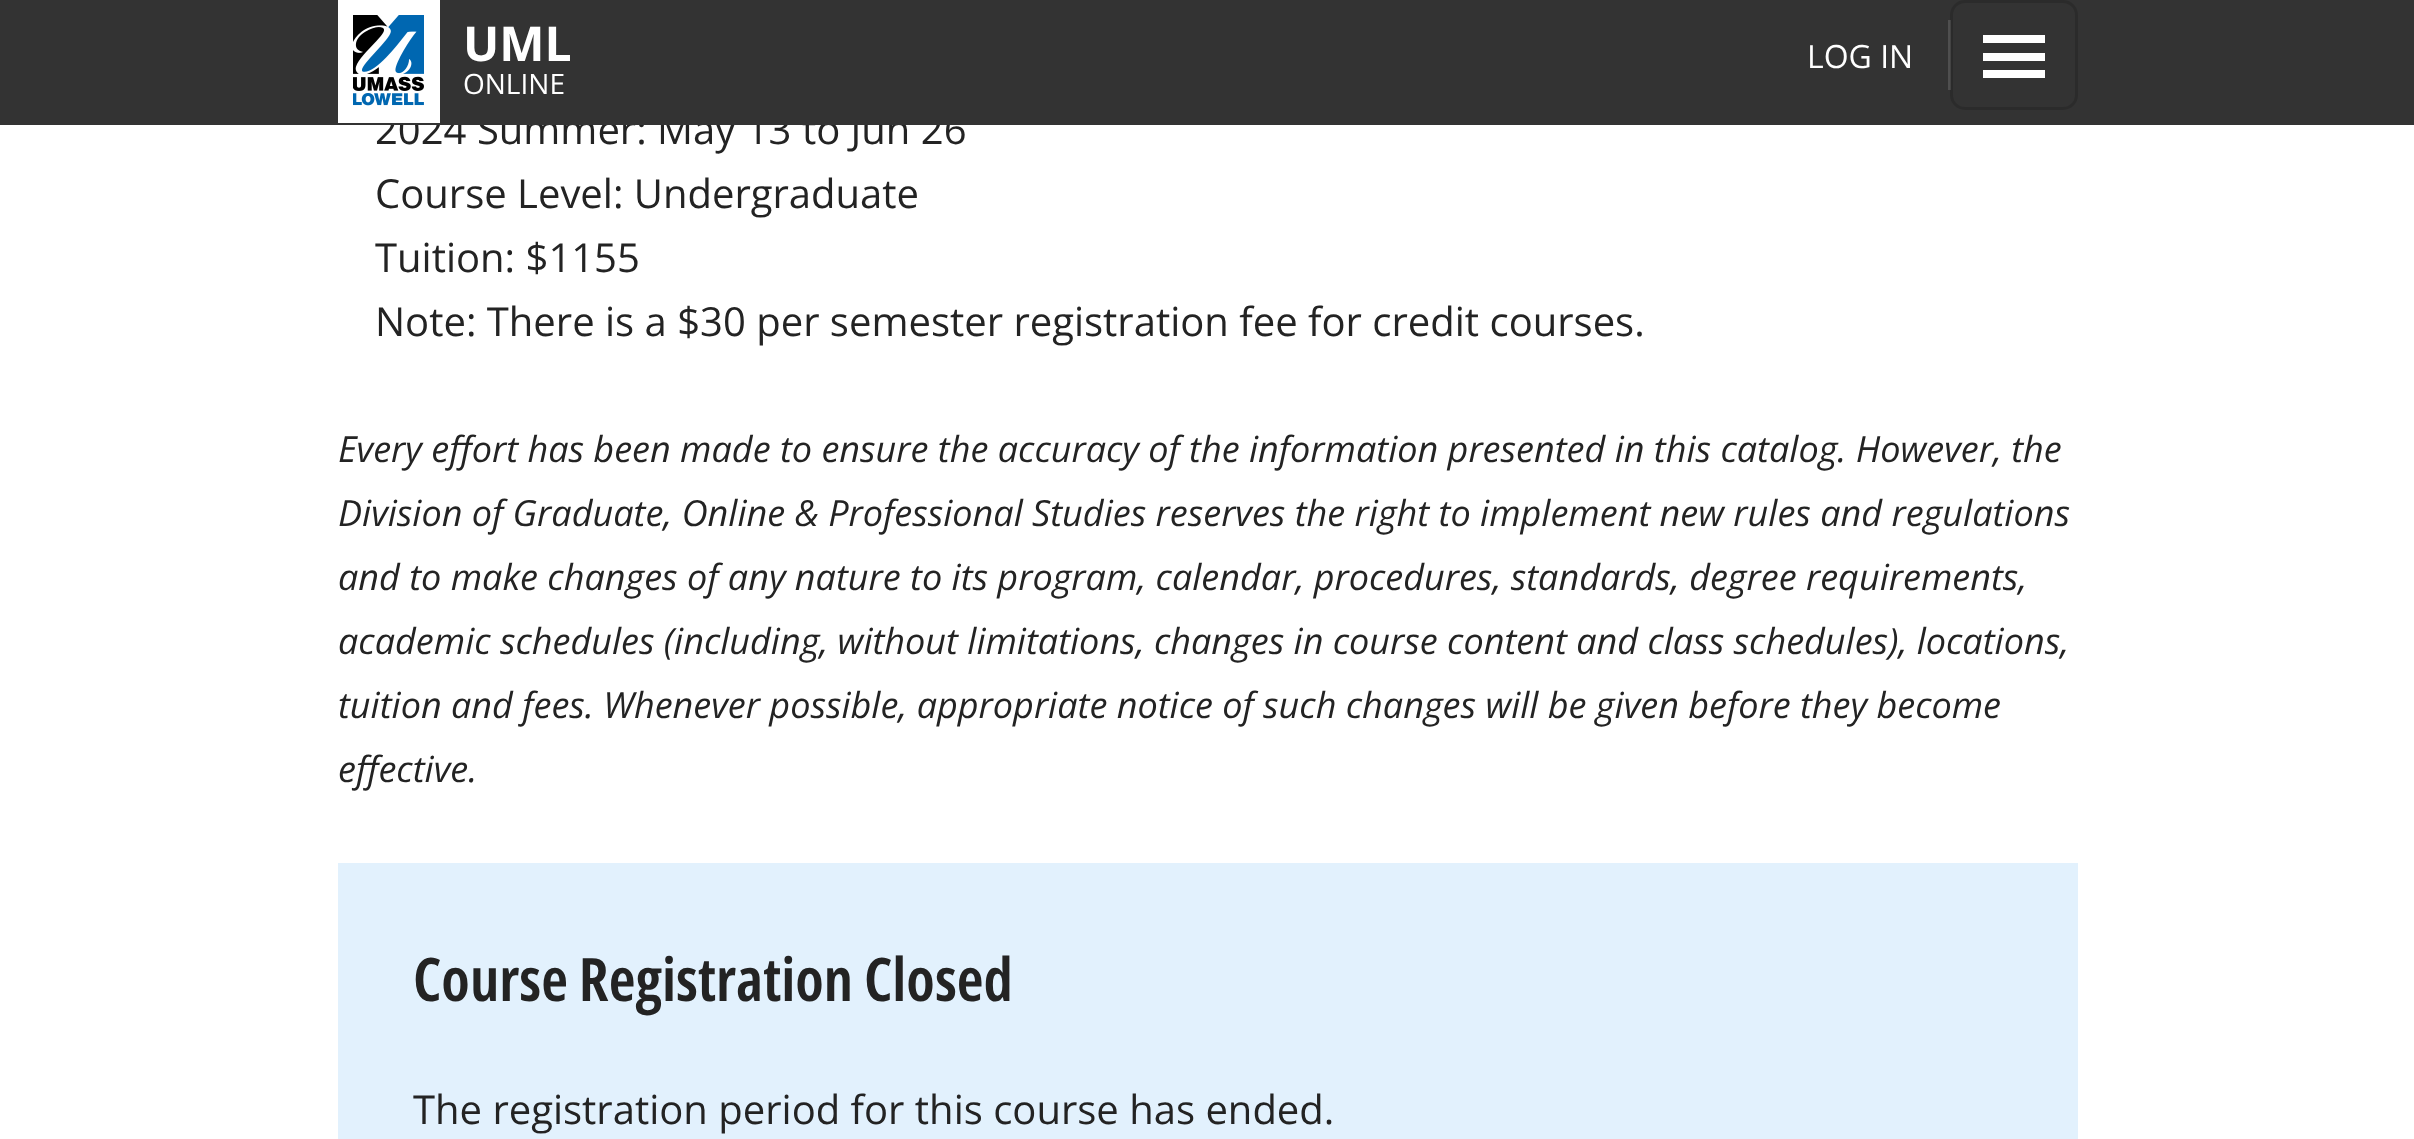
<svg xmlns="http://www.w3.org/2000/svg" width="2414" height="1139">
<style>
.a{font:40px Open Sans;fill:#232323}
.b{font:28px Open Sans;fill:#fff}
.c{font:bold 48px Open Sans;fill:#fff}
.d{font:32px Open Sans;fill:#fff}
.e{font:italic 36px Open Sans;fill:#232323}
.f{font:600 60px Open Sans;fill:#232323}
</style>
<rect width="100%" height="100%" fill="#fff"/>
<path fill="#e2f1fd" d="M338 863h1740v276H338z"/>
<text class="a" x="375" y="144">2024 Summer: May 13 to Jun 26</text>
<path fill="#333" d="M0 0h2414v125H0z"/>
<path fill="#4f4f4f" d="M1948 20h3v70H1948z"/>
<rect fill="none" stroke="#00000026" stroke-width="3" x="1951.5" y="1.5" width="125" height="107" rx="13.5"/>
<path fill="#fff" d="M1983 70h62v8H1983z"/>
<path fill="#fff" d="M1983 53h62v8H1983z"/>
<path fill="#fff" d="M1983 35h62v8H1983z"/>
<text class="b" x="463" y="94">ONLINE</text>
<text class="c" x="463" y="61">UML</text>
<path fill="#fff" d="M338 0h102v123H338z"/>
<image href="1.png" x="353" y="15" width="71" height="91"/>
<text class="d" x="1807" y="68">LOG IN</text>
<text class="a" x="375" y="208">Course Level: Undergraduate</text>
<text class="a" x="375" y="272">Tuition: $1155</text>
<text class="a" x="375" y="336">Note: There is a $30 per semester registration fee for credit courses.</text>
<text class="e" x="338" y="462">Every effort has been made to ensure the accuracy of the information presented in this catalog. However, the</text>
<text class="e" x="338" y="526">Division of Graduate, Online &amp; Professional Studies reserves the right to implement new rules and regulations</text>
<text class="e" x="338" y="590">and to make changes of any nature to its program, calendar, procedures, standards, degree requirements,</text>
<text class="e" x="338" y="654">academic schedules (including, without limitations, changes in course content and class schedules), locations,</text>
<text class="e" x="338" y="718">tuition and fees. Whenever possible, appropriate notice of such changes will be given before they become</text>
<text class="e" x="338" y="782">effective.</text>
<text class="f" x="413" y="1001">Course Registration Closed</text>
<text class="a" x="413" y="1124">The registration period for this course has ended.</text>
</svg>
